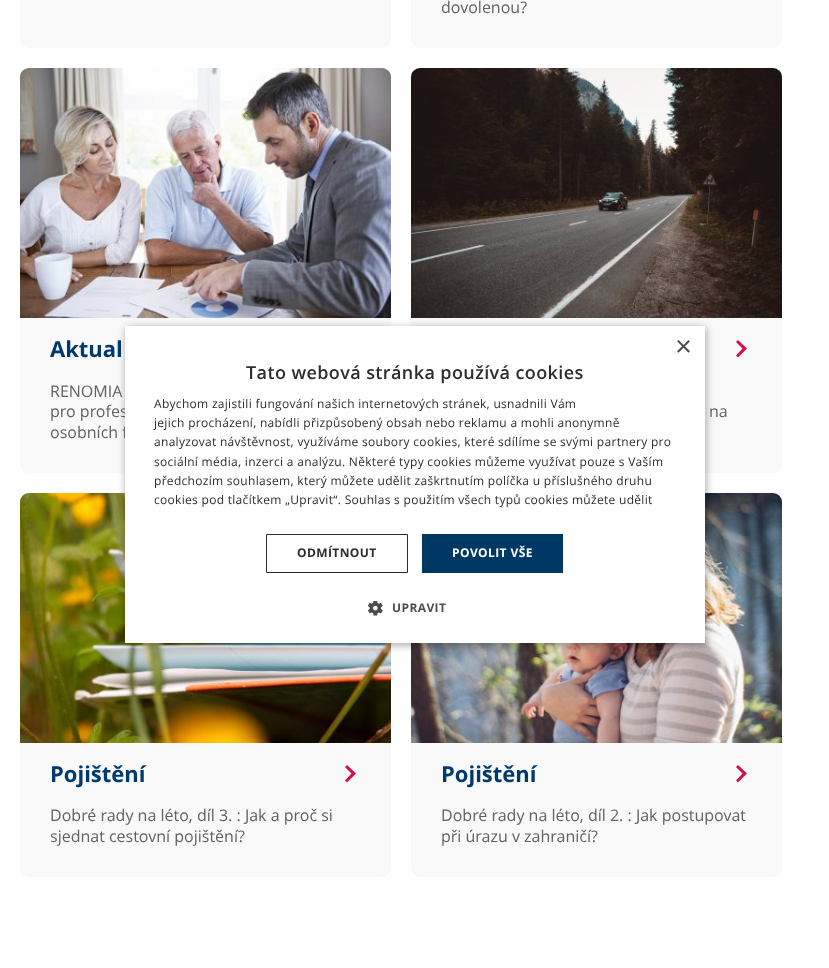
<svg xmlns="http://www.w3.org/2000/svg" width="829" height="968">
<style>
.a{font:16px Open Sans;fill:#616161}
.b{font:bold 22px Open Sans;fill:#00396e}
.c{font:29px Liberation Sans;fill:#4d4d4d}
.d{font:600 18px Open Sans;letter-spacing:0.4px;fill:#2d2d2d}
.e{font:12px 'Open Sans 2';letter-spacing:0.3px;fill:#2d2d2d}
.f{font:bold 12px 'Open Sans 2';letter-spacing:0.4px;fill:#2d2d2d}
.g{font:bold 12px 'Open Sans 2';letter-spacing:0.4px;fill:#fff}
.h{font:bold 12px 'Open Sans 2';letter-spacing:0.4px;fill:#4d4d4d}
</style>
<rect width="100%" height="100%" fill="#fff"/>
<rect fill="#f9f9f9" x="20" y="-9" width="371" height="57" rx="9"/>
<rect fill="#f9f9f9" x="411" y="-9" width="371" height="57" rx="9"/>
<rect fill="#f9f9f9" x="20" y="68" width="371" height="405" rx="9"/>
<path fill="#f0f0f0" d="M29 68h353c5 0 9 4 9 9v241h-371v-241c0-5 4-9 9-9z"/>
<image href="1.png" x="20" y="68" width="371" height="250"/>
<rect fill="#f9f9f9" x="411" y="68" width="371" height="405" rx="9"/>
<path fill="#f0f0f0" d="M420 68h353c5 0 9 4 9 9v241h-371v-241c0-5 4-9 9-9z"/>
<image href="2.png" x="411" y="68" width="371" height="250"/>
<path fill="#d21249" d="M736 355.5l6.5-7l-6.5-6.5l2-2l9 8.5l-9 9z"/>
<rect fill="#f9f9f9" x="20" y="493" width="371" height="384" rx="9"/>
<path fill="#f0f0f0" d="M29 493h353c5 0 9 4 9 9v241h-371v-241c0-5 4-9 9-9z"/>
<image href="3.png" x="20" y="493" width="371" height="250"/>
<path fill="#d21249" d="M345 780.5l6.5-7l-6.5-6.5l2-2l9 8.5l-9 9z"/>
<rect fill="#f9f9f9" x="411" y="493" width="371" height="384" rx="9"/>
<path fill="#f0f0f0" d="M420 493h353c5 0 9 4 9 9v241h-371v-241c0-5 4-9 9-9z"/>
<image href="4.png" x="411" y="493" width="371" height="250"/>
<path fill="#d21249" d="M736 780.5l6.5-7l-6.5-6.5l2-2l9 8.5l-9 9z"/>
<path fill="#00000059" filter="blur(4px)" d="M126 328h580v317H126z"/>
<text class="a" x="441" y="13">dovolenou?</text>
<text class="b" x="50" y="357">Aktual</text>
<text class="a" x="50" y="397">RENOMIA</text>
<text class="a" x="50" y="417">pro profes</text>
<text class="a" x="50" y="438">osobních f</text>
<text class="a" x="709" y="417">na</text>
<text class="b" x="50" y="782">Pojištění</text>
<text class="a" x="50" y="821">Dobré rady na léto, díl 3. : Jak a proč si</text>
<text class="a" x="50" y="842">sjednat cestovní pojištění?</text>
<text class="b" x="441" y="782">Pojištění</text>
<text class="a" x="441" y="821">Dobré rady na léto, díl 2. : Jak postupovat</text>
<text class="a" x="441" y="842">při úrazu v zahraničí?</text>
<path fill="#fff" d="M125 326h580v317H125z"/>
<text class="c" x="675" y="356">×</text>
<text class="d" x="246" y="379">Tato webová stránka používá cookies</text>
<text class="e" x="154" y="408">Abychom zajistili fungování našich internetových stránek, usnadnili Vám</text>
<text class="e" x="154" y="427">jejich procházení, nabídli přizpůsobený obsah nebo reklamu a mohli anonymně</text>
<text class="e" x="154" y="446">analyzovat návštěvnost, využíváme soubory cookies, které sdílíme se svými partnery pro</text>
<text class="e" x="154" y="466">sociální média, inzerci a analýzu. Některé typy cookies můžeme využívat pouze s Vaším</text>
<text class="e" x="154" y="485">předchozím souhlasem, který můžete udělit zaškrtnutím políčka u příslušného druhu</text>
<text class="e" x="154" y="504">cookies pod tlačítkem „Upravit“. Souhlas s použitím všech typů cookies můžete udělit</text>
<path fill="none" stroke="#2d2d2d" d="M266.5 534.5h141v38H266.5z"/>
<text class="f" x="297" y="557">ODMÍTNOUT</text>
<path fill="#003865" d="M422 534h141v39H422z"/>
<text class="g" x="452" y="557">POVOLIT VŠE</text>
<image href="5.png" x="368" y="601" width="15" height="15"/>
<text class="h" x="392" y="612">UPRAVIT</text>
</svg>
